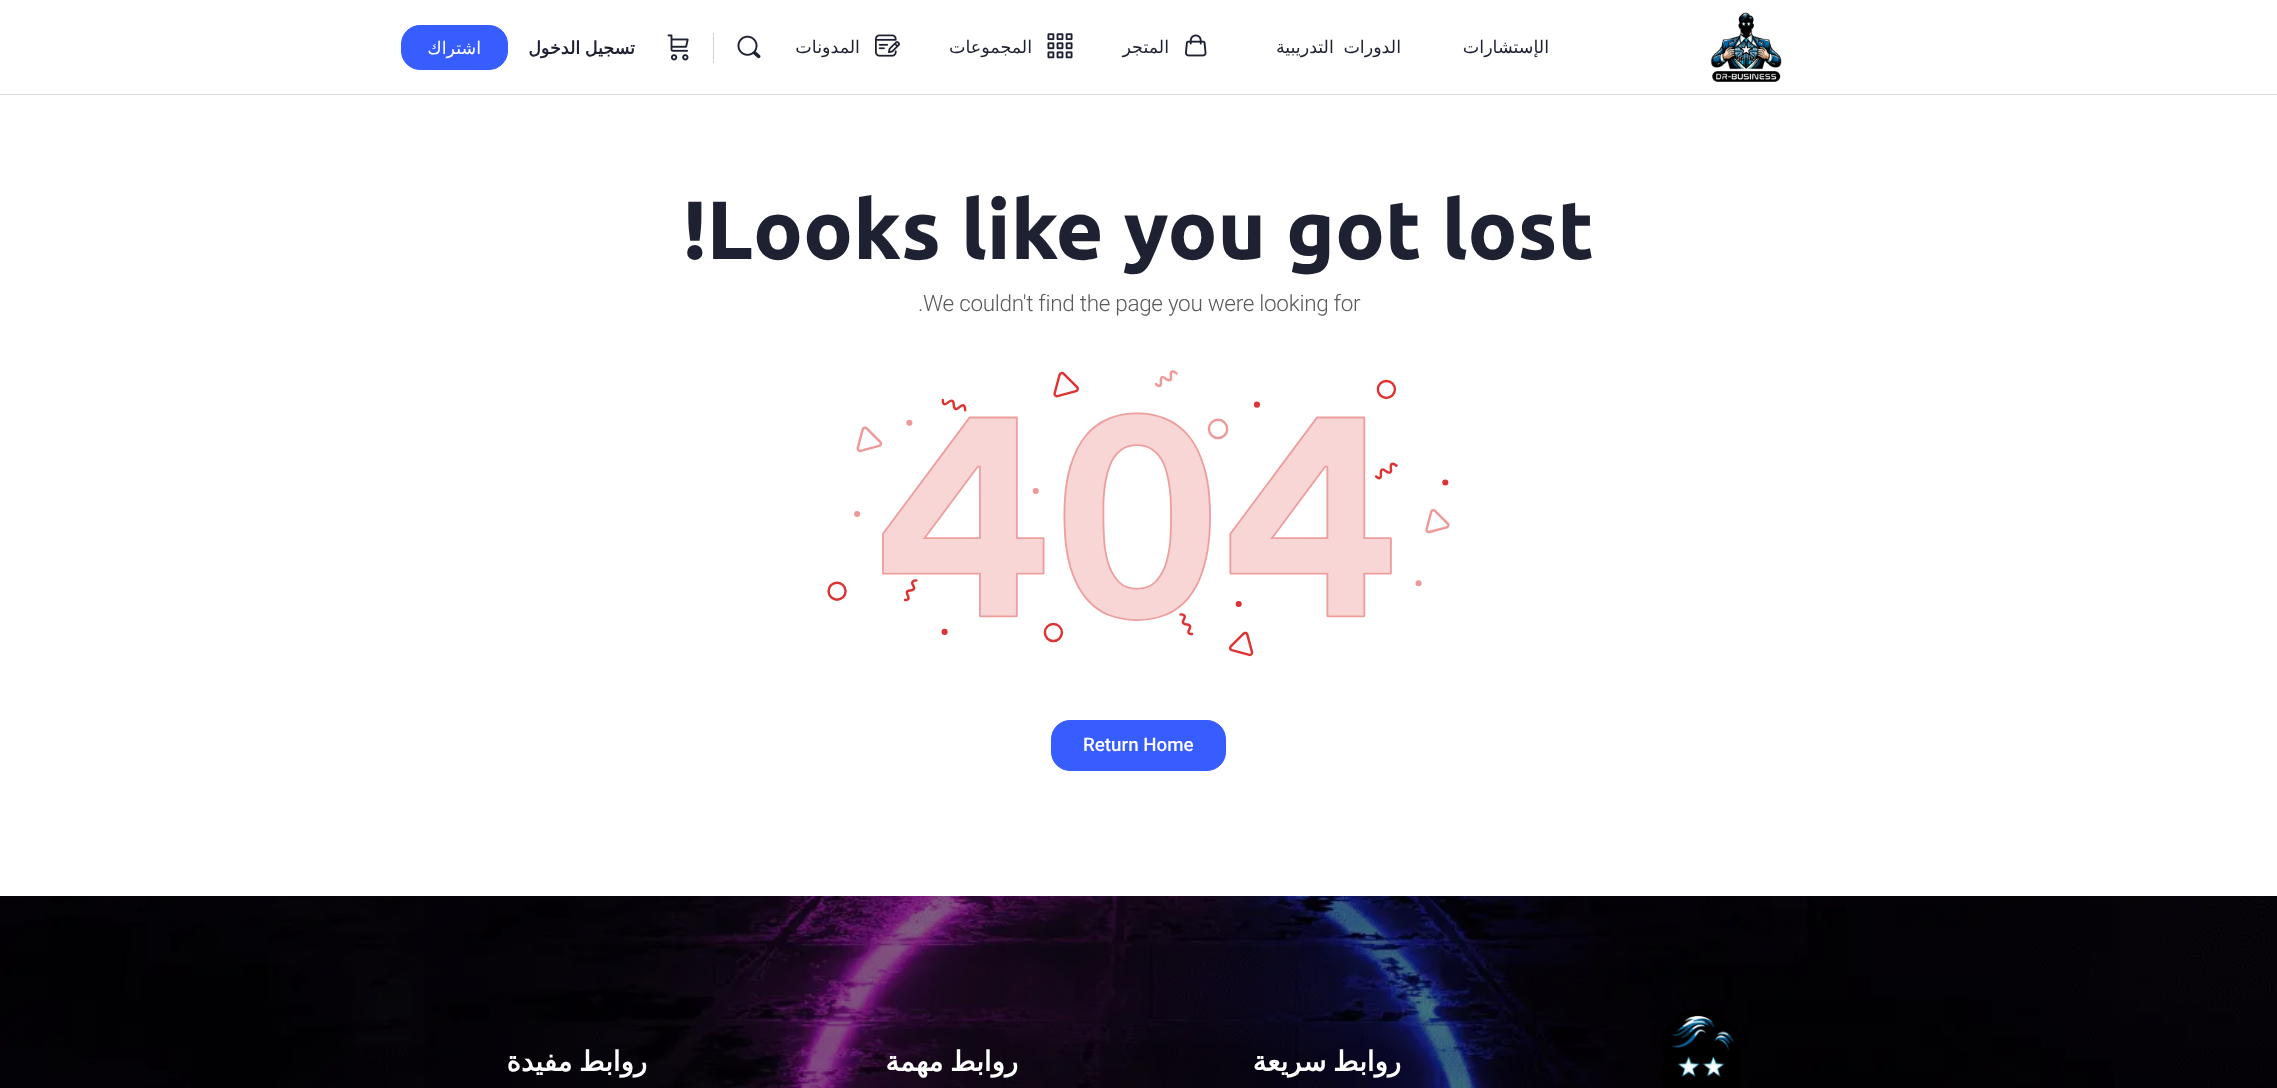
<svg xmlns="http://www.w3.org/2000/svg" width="2277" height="1088">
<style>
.a{font:17.5px DejaVu Sans;letter-spacing:-0.3px;direction:rtl;fill:#1e2132}
.b{font:bold 17.5px DejaVu Sans;direction:rtl;fill:#1e2132}
.c{font:17.5px DejaVu Sans;direction:rtl;fill:#fff}
.d{font:bold 82.5px Ubuntu;fill:#1e2132}
.e{font:300 22.5px Roboto;letter-spacing:-0.3px;fill:#5a5a5a}
.f{font:500 18.75px Roboto;fill:#fff}
.g{font:bold 27.5px DejaVu Sans;direction:rtl;fill:#fff}
</style>
<rect width="100%" height="100%" fill="#fff"/>
<path fill="#dcdfe3" d="M0 94h2277v1H0z"/>
<image href="1.png" x="1710" y="12" width="72" height="70"/>
<image href="2.png" x="1185" y="34" width="22" height="23"/>
<image href="3.png" x="1047" y="33" width="26" height="26"/>
<image href="4.png" x="875" y="34" width="25" height="23"/>
<image href="5.png" x="737" y="35" width="24" height="24"/>
<path fill="#d2d3d6" d="M713 33h1v30H713z"/>
<image href="6.png" x="667" y="34" width="22" height="27"/>
<rect fill="#385dff" stroke="#385dff" x="401.5" y="25.5" width="106" height="44" rx="18.5"/>
<image href="7.png" x="827" y="370" width="623" height="287"/>
<rect fill="#385dff" stroke="#385dff" x="1051.5" y="720.5" width="174" height="50" rx="18.5"/>
<image href="8.png" x="0" y="896" width="2277" height="192"/>
<image href="9.png" x="1660" y="1009" width="80" height="79"/>
<text class="a" x="1549" y="53">الإستشارات</text>
<text class="a" x="1401" y="53" word-spacing="4">الدورات التدريبية</text>
<text class="a" x="1169" y="53">المتجر</text>
<text class="a" x="1032" y="53">المجموعات</text>
<text class="a" x="860" y="53">المدونات</text>
<text class="b" x="635" y="54" word-spacing="-1">تسجيل الدخول</text>
<text class="c" x="481" y="54">اشتراك</text>
<text class="d" x="683" y="259">!Looks like you got lost</text>
<text class="e" x="918" y="311">.We couldn't find the page you were looking for</text>
<text class="f" x="1083" y="751">Return Home</text>
<text class="g" x="1401" y="1071" word-spacing="-2">روابط سريعة</text>
<text class="g" x="1018" y="1071" word-spacing="-2">روابط مهمة</text>
<text class="g" x="647" y="1071" word-spacing="-2">روابط مفيدة</text>
</svg>
